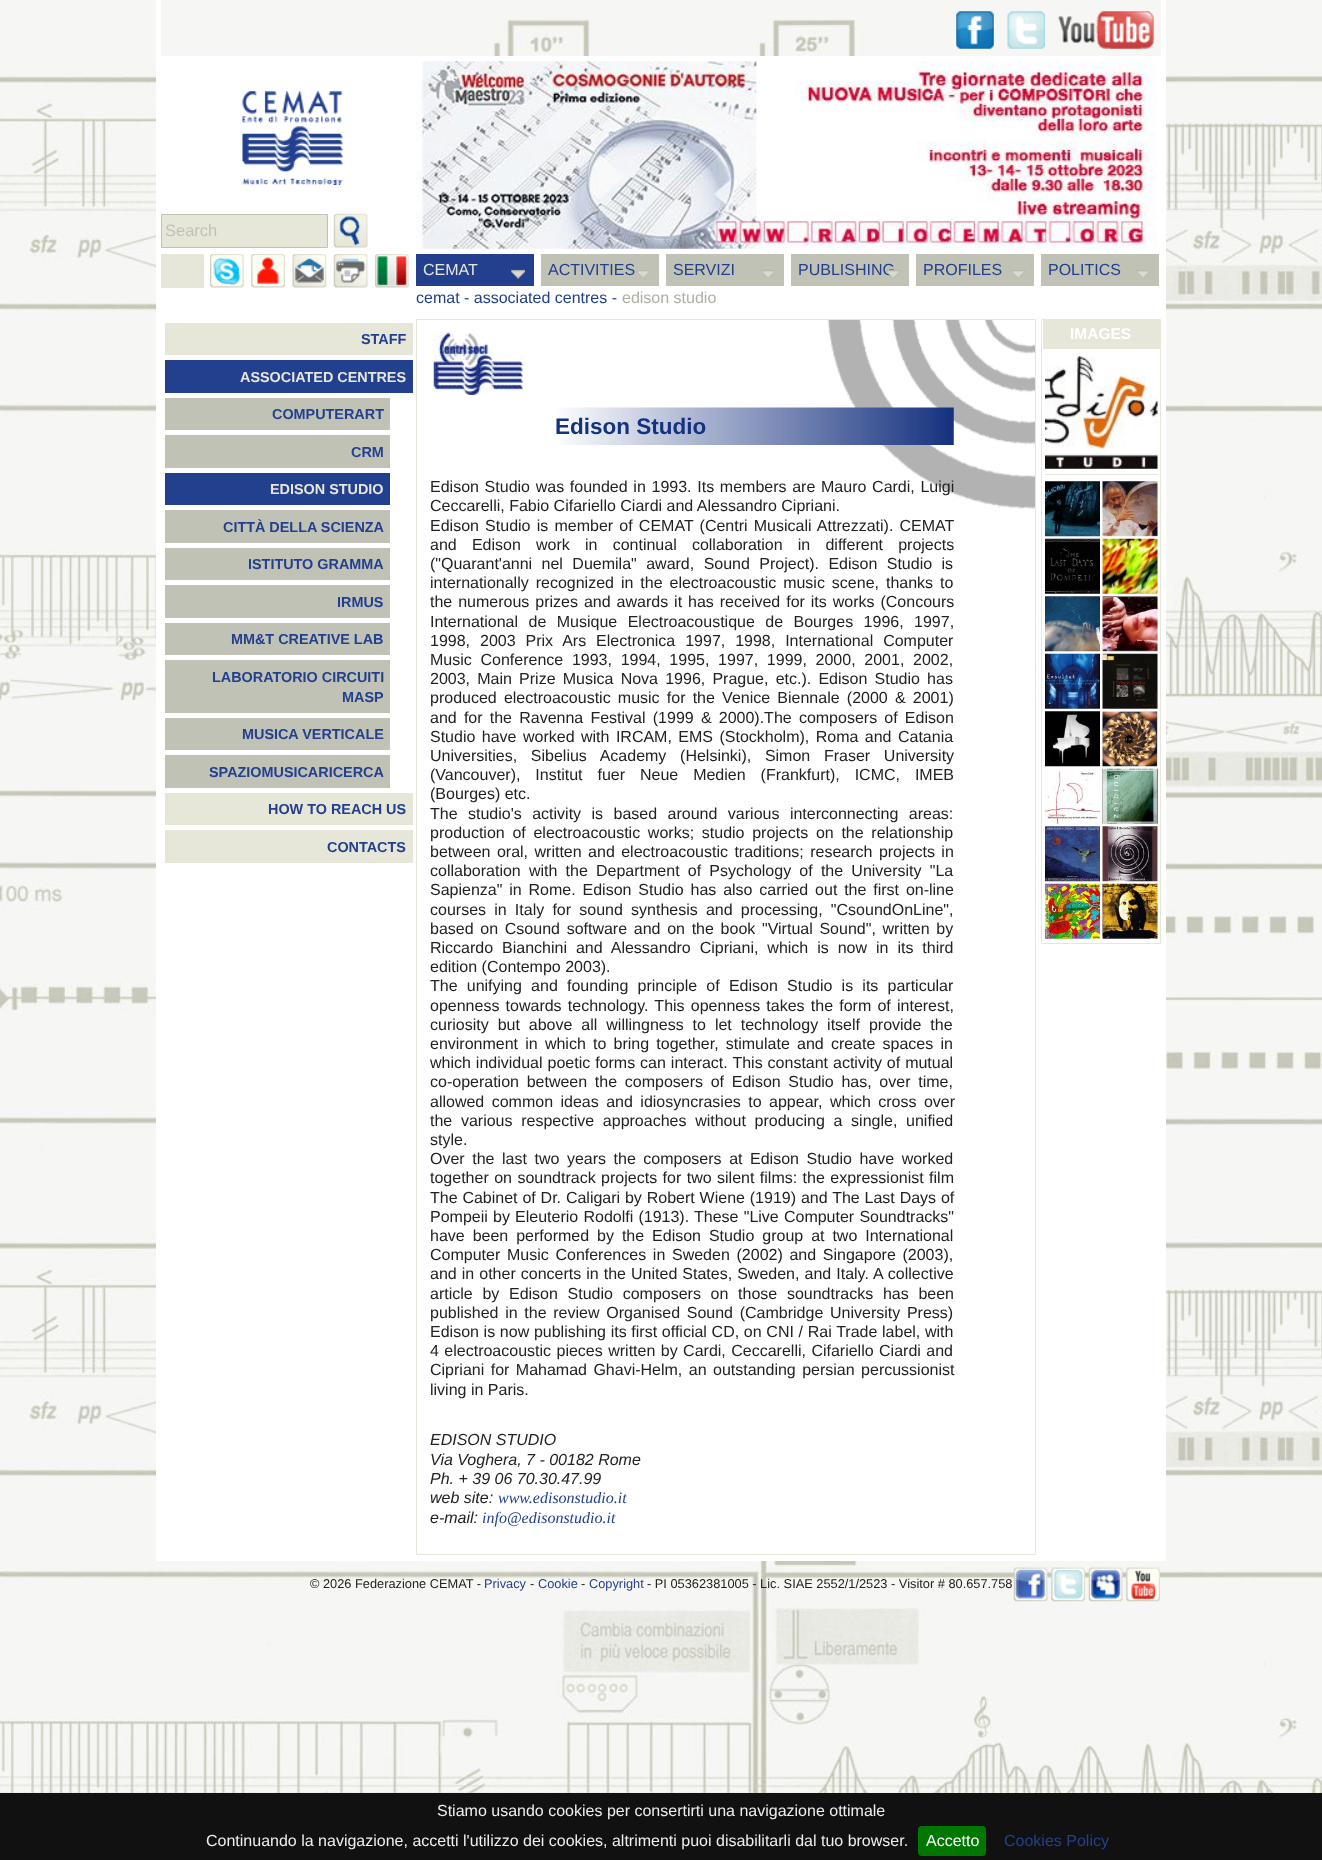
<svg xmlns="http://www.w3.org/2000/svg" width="1322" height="1860">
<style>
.a{font:16.5px Liberation Sans;fill:#c1c2b6}
.b{font:16px Liberation Sans;fill:#e6e6d9}
.c{font:16px Liberation Sans;fill:#23408f}
.d{font:16px Liberation Sans;fill:#adafa3}
.e{font:bold 14.4px Liberation Sans;fill:#23408f}
.f{font:bold 14.4px Liberation Sans;fill:#e6e6d9}
.g{font:bold 22.5px Liberation Sans;fill:#153280}
.h{font:16px Liberation Sans;fill:#222}
.i{font:italic 16px Liberation Sans;fill:#222}
.j{font:italic 16px Liberation Serif;fill:#23408f}
.k{font:bold 15.5px Liberation Sans;fill:#fff}
.l{font:12.8px Liberation Sans;fill:#222}
.m{font:12.8px Liberation Sans;fill:#23408f}
.n{font:16px Liberation Sans;fill:#eee}
.o{font:16px Liberation Sans;fill:#fff}
</style>
<rect width="100%" height="100%" fill="#fff"/>
<image href="1.png" x="0" y="0" width="1322" height="1793"/>
<path fill="#fff" d="M1161 0h5v56H1161z"/>
<path fill="#fff" d="M156 0h5v56H156z"/>
<image href="2.png" x="956" y="11" width="38" height="38"/>
<image href="3.png" x="1007" y="11" width="38" height="38"/>
<image href="4.png" x="1058" y="11" width="96" height="38"/>
<path fill="#fff" d="M156 56h1010v1505H156z"/>
<image href="5.png" x="242" y="91" width="101" height="94"/>
<image href="6.png" x="416" y="61" width="741" height="188"/>
<path fill="#e6e6d9" stroke="#c1c2b6" d="M161.5 214.5h166v33H161.5z"/>
<image href="7.png" x="333" y="213" width="35" height="35"/>
<path fill="#e6e6d9" d="M161 254h43v34H161z"/>
<image href="8.png" x="210" y="254" width="34" height="34"/>
<image href="9.png" x="251" y="254" width="34" height="34"/>
<image href="10.png" x="292" y="254" width="35" height="34"/>
<image href="11.png" x="333" y="254" width="35" height="34"/>
<image href="12.png" x="375" y="254" width="34" height="34"/>
<path fill="#23408f" d="M416 254h118v32H416z"/>
<image href="13.png" x="511" y="269" width="14" height="10"/>
<path fill="#c1c2b6" d="M541 254h118v32H541z"/>
<image href="14.png" x="636" y="270" width="14" height="9"/>
<path fill="#c1c2b6" d="M666 254h118v32H666z"/>
<image href="14.png" x="761" y="270" width="14" height="9"/>
<path fill="#c1c2b6" d="M791 254h118v32H791z"/>
<path fill="#c1c2b6" d="M916 254h118v32H916z"/>
<image href="16.png" x="1011" y="270" width="14" height="9"/>
<path fill="#c1c2b6" d="M1041 254h118v32H1041z"/>
<image href="14.png" x="1136" y="270" width="14" height="9"/>
<path fill="#e6e6d9" d="M165 323h248v32H165z"/>
<path fill="#23408f" d="M165 360h248v33H165z"/>
<path fill="#c1c2b6" d="M165 398h225v32H165z"/>
<path fill="#c1c2b6" d="M165 435h225v33H165z"/>
<path fill="#23408f" d="M165 473h225v32H165z"/>
<path fill="#c1c2b6" d="M165 510h225v33H165z"/>
<path fill="#c1c2b6" d="M165 548h225v32H165z"/>
<path fill="#c1c2b6" d="M165 585h225v33H165z"/>
<path fill="#c1c2b6" d="M165 623h225v32H165z"/>
<path fill="#c1c2b6" d="M165 660h225v53H165z"/>
<path fill="#c1c2b6" d="M165 718h225v32H165z"/>
<path fill="#c1c2b6" d="M165 755h225v33H165z"/>
<path fill="#e6e6d9" d="M165 793h248v32H165z"/>
<path fill="#e6e6d9" d="M165 830h248v33H165z"/>
<image href="17.png" x="827" y="320" width="208" height="189"/>
<path fill="none" stroke="#e6e6d9" d="M416.5 319.5h619v1235H416.5z"/>
<image href="18.png" x="433" y="332" width="90" height="63"/>
<image href="19.png" x="559" y="407" width="395" height="38"/>
<path fill="none" stroke="#e6e6d9" d="M1041.5 319.5h119v624H1041.5z"/>
<path fill="#e6e6d9" d="M1043 320h117v29H1043z"/>
<path fill="#e6e6d9" d="M1045 474h113v1H1045z"/>
<image href="20.png" x="1045" y="356" width="113" height="113"/>
<image href="21.png" x="1045" y="481" width="55" height="56"/>
<image href="22.png" x="1102" y="481" width="56" height="56"/>
<image href="23.png" x="1045" y="538" width="55" height="56"/>
<image href="24.png" x="1102" y="538" width="56" height="56"/>
<image href="25.png" x="1045" y="596" width="55" height="56"/>
<image href="26.png" x="1102" y="596" width="56" height="56"/>
<image href="27.png" x="1045" y="653" width="55" height="56"/>
<image href="28.png" x="1102" y="653" width="56" height="56"/>
<image href="29.png" x="1045" y="711" width="55" height="56"/>
<image href="30.png" x="1102" y="711" width="56" height="56"/>
<image href="31.png" x="1045" y="769" width="55" height="55"/>
<image href="32.png" x="1102" y="768" width="56" height="56"/>
<image href="33.png" x="1045" y="826" width="55" height="56"/>
<image href="34.png" x="1102" y="826" width="56" height="56"/>
<image href="35.png" x="1045" y="883" width="55" height="56"/>
<image href="36.png" x="1102" y="883" width="56" height="56"/>
<image href="37.png" x="1013" y="1567" width="35" height="35"/>
<image href="38.png" x="1051" y="1567" width="34" height="35"/>
<image href="39.png" x="1088" y="1567" width="35" height="35"/>
<image href="40.png" x="1126" y="1567" width="34" height="35"/>
<path fill="#111" d="M0 1793h1322v67H0z"/>
<rect fill="#070" x="918" y="1826" width="68" height="30" rx="4"/>
<text class="a" x="165" y="236">Search</text>
<text class="b" x="423" y="275">CEMAT</text>
<text class="c" x="548" y="275">ACTIVITIES</text>
<text class="c" x="673" y="275">SERVIZI</text>
<text class="c" x="798" y="275">PUBLISHING</text>
<image href="15.png" x="886" y="269" width="14" height="10"/>
<text class="c" x="923" y="275">PROFILES</text>
<text class="c" x="1048" y="275">POLITICS</text>
<text class="c" x="416" y="303">cemat - associated centres -</text>
<text class="d" x="622" y="303">edison studio</text>
<text class="e" x="361" y="344">STAFF</text>
<text class="f" x="240" y="382">ASSOCIATED CENTRES</text>
<text class="e" x="272" y="419">COMPUTERART</text>
<text class="e" x="351" y="457">CRM</text>
<text class="f" x="270" y="494">EDISON STUDIO</text>
<text class="e" x="223" y="532">CITTÀ DELLA SCIENZA</text>
<text class="e" x="248" y="569">ISTITUTO GRAMMA</text>
<text class="e" x="337" y="607">IRMUS</text>
<text class="e" x="231" y="644">MM&amp;T CREATIVE LAB</text>
<text class="e" x="212" y="682">LABORATORIO CIRCUITI</text>
<text class="e" x="342" y="702">MASP</text>
<text class="e" x="242" y="739">MUSICA VERTICALE</text>
<text class="e" x="209" y="777">SPAZIOMUSICARICERCA</text>
<text class="e" x="268" y="814">HOW TO REACH US</text>
<text class="e" x="327" y="852">CONTACTS</text>
<text class="g" x="555" y="434">Edison Studio</text>
<text class="h" x="430" y="492" word-spacing="1.25">Edison Studio was founded in 1993. Its members are Mauro Cardi, Luigi</text>
<text class="h" x="430" y="511">Ceccarelli, Fabio Cifariello Ciardi and Alessandro Cipriani.</text>
<text class="h" x="430" y="531" word-spacing="1.75">Edison Studio is member of CEMAT (Centri Musicali Attrezzati). CEMAT</text>
<text class="h" x="430" y="550" word-spacing="10.75">and Edison work in continual collaboration in different projects</text>
<text class="h" x="430" y="569" word-spacing="5">("Quarant'anni nel Duemila" award, Sound Project). Edison Studio is</text>
<text class="h" x="430" y="588" word-spacing="2.5">internationally recognized in the electroacoustic music scene, thanks to</text>
<text class="h" x="430" y="607" word-spacing="1.5">the numerous prizes and awards it has received for its works (Concours</text>
<text class="h" x="430" y="627" word-spacing="6">International de Musique Electroacoustique de Bourges 1996, 1997,</text>
<text class="h" x="430" y="646" word-spacing="5.5">1998, 2003 Prix Ars Electronica 1997, 1998, International Computer</text>
<text class="h" x="430" y="665" word-spacing="4.25">Music Conference 1993, 1994, 1995, 1997, 1999, 2000, 2001, 2002,</text>
<text class="h" x="430" y="684" word-spacing="2.75">2003, Main Prize Musica Nova 1996, Prague, etc.). Edison Studio has</text>
<text class="h" x="430" y="703" word-spacing="2.75">produced electroacoustic music for the Venice Biennale (2000 &amp; 2001)</text>
<text class="h" x="430" y="723" word-spacing="2.75">and for the Ravenna Festival (1999 &amp; 2000).The composers of Edison</text>
<text class="h" x="430" y="742" word-spacing="2">Studio have worked with IRCAM, EMS (Stockholm), Roma and Catania</text>
<text class="h" x="430" y="761" word-spacing="9.25">Universities, Sibelius Academy (Helsinki), Simon Fraser University</text>
<text class="h" x="430" y="780" word-spacing="10.5">(Vancouver), Institut fuer Neue Medien (Frankfurt), ICMC, IMEB</text>
<text class="h" x="430" y="799">(Bourges) etc.</text>
<text class="h" x="430" y="819" word-spacing="6">The studio's activity is based around various interconnecting areas:</text>
<text class="h" x="430" y="838" word-spacing="3.25">production of electroacoustic works; studio projects on the relationship</text>
<text class="h" x="430" y="857" word-spacing="2">between oral, written and electroacoustic traditions; research projects in</text>
<text class="h" x="430" y="876" word-spacing="3.75">collaboration with the Department of Psychology of the University "La</text>
<text class="h" x="430" y="895" word-spacing="2.4">Sapienza" in Rome. Edison Studio has also carried out the first on-line</text>
<text class="h" x="430" y="915" word-spacing="3.75">courses in Italy for sound synthesis and processing, "CsoundOnLine",</text>
<text class="h" x="430" y="934" word-spacing="2.25">based on Csound software and on the book "Virtual Sound", written by</text>
<text class="h" x="430" y="953" word-spacing="4.5">Riccardo Bianchini and Alessandro Cipriani, which is now in its third</text>
<text class="h" x="430" y="972">edition (Contempo 2003).</text>
<text class="h" x="430" y="991" word-spacing="4.75">The unifying and founding principle of Edison Studio is its particular</text>
<text class="h" x="430" y="1011" word-spacing="1.75">openness towards technology. This openness takes the form of interest,</text>
<text class="h" x="430" y="1030" word-spacing="4.5">curiosity but above all willingness to let technology itself provide the</text>
<text class="h" x="430" y="1049" word-spacing="2.75">environment in which to bring together, stimulate and create spaces in</text>
<text class="h" x="430" y="1068" word-spacing="0.5">which individual poetic forms can interact. This constant activity of mutual</text>
<text class="h" x="430" y="1087" word-spacing="3.25">co-operation between the composers of Edison Studio has, over time,</text>
<text class="h" x="430" y="1107" word-spacing="3">allowed common ideas and idiosyncrasies to appear, which cross over</text>
<text class="h" x="430" y="1126" word-spacing="4.25">the various respective approaches without producing a single, unified</text>
<text class="h" x="430" y="1145">style.</text>
<text class="h" x="430" y="1164" word-spacing="3.1">Over the last two years the composers at Edison Studio have worked</text>
<text class="h" x="430" y="1183" word-spacing="1">together on soundtrack projects for two silent films: the expressionist film</text>
<text class="h" x="430" y="1203" word-spacing="0.4">The Cabinet of Dr. Caligari by Robert Wiene (1919) and The Last Days of</text>
<text class="h" x="430" y="1222" word-spacing="0.75">Pompeii by Eleuterio Rodolfi (1913). These "Live Computer Soundtracks"</text>
<text class="h" x="430" y="1241" word-spacing="3.5">have been performed by the Edison Studio group at two International</text>
<text class="h" x="430" y="1260" word-spacing="2.25">Computer Music Conferences in Sweden (2002) and Singapore (2003),</text>
<text class="h" x="430" y="1279" word-spacing="0.6">and in other concerts in the United States, Sweden, and Italy. A collective</text>
<text class="h" x="430" y="1299" word-spacing="5.25">article by Edison Studio composers on those soundtracks has been</text>
<text class="h" x="430" y="1318" word-spacing="2.25">published in the review Organised Sound (Cambridge University Press)</text>
<text class="h" x="430" y="1337" word-spacing="0.25">Edison is now publishing its first official CD, on CNI / Rai Trade label, with</text>
<text class="h" x="430" y="1356" word-spacing="1">4 electroacoustic pieces written by Cardi, Ceccarelli, Cifariello Ciardi and</text>
<text class="h" x="430" y="1375" word-spacing="2">Cipriani for Mahamad Ghavi-Helm, an outstanding persian percussionist</text>
<text class="h" x="430" y="1395">living in Paris.</text>
<text class="i" x="430" y="1445">EDISON STUDIO</text>
<text class="i" x="430" y="1465">Via Voghera, 7 - 00182 Rome</text>
<text class="i" x="430" y="1484">Ph. + 39 06 70.30.47.99</text>
<text class="i" x="430" y="1503">web site:</text>
<text class="j" x="498" y="1503">www.edisonstudio.it</text>
<text class="i" x="430" y="1523">e-mail:</text>
<text class="j" x="482" y="1523">info@edisonstudio.it</text>
<text class="k" x="1070" y="339">IMAGES</text>
<text class="l" x="310" y="1588">© 2026 Federazione CEMAT -</text>
<text class="m" x="484" y="1588">Privacy</text>
<text class="l" x="530" y="1588">-</text>
<text class="m" x="538" y="1588">Cookie</text>
<text class="l" x="581" y="1588">-</text>
<text class="m" x="589" y="1588">Copyright</text>
<text class="l" x="647" y="1588">- PI 05362381005 - Lic. SIAE 2552/1/2523 - Visitor # 80.657.758</text>
<text class="n" x="437" y="1816">Stiamo usando cookies per consertirti una navigazione ottimale</text>
<text class="n" x="206" y="1846">Continuando la navigazione, accetti l'utilizzo dei cookies, altrimenti puoi disabilitarli dal tuo browser.</text>
<text class="o" x="926" y="1846">Accetto</text>
<text class="c" x="1004" y="1846">Cookies Policy</text>
</svg>
